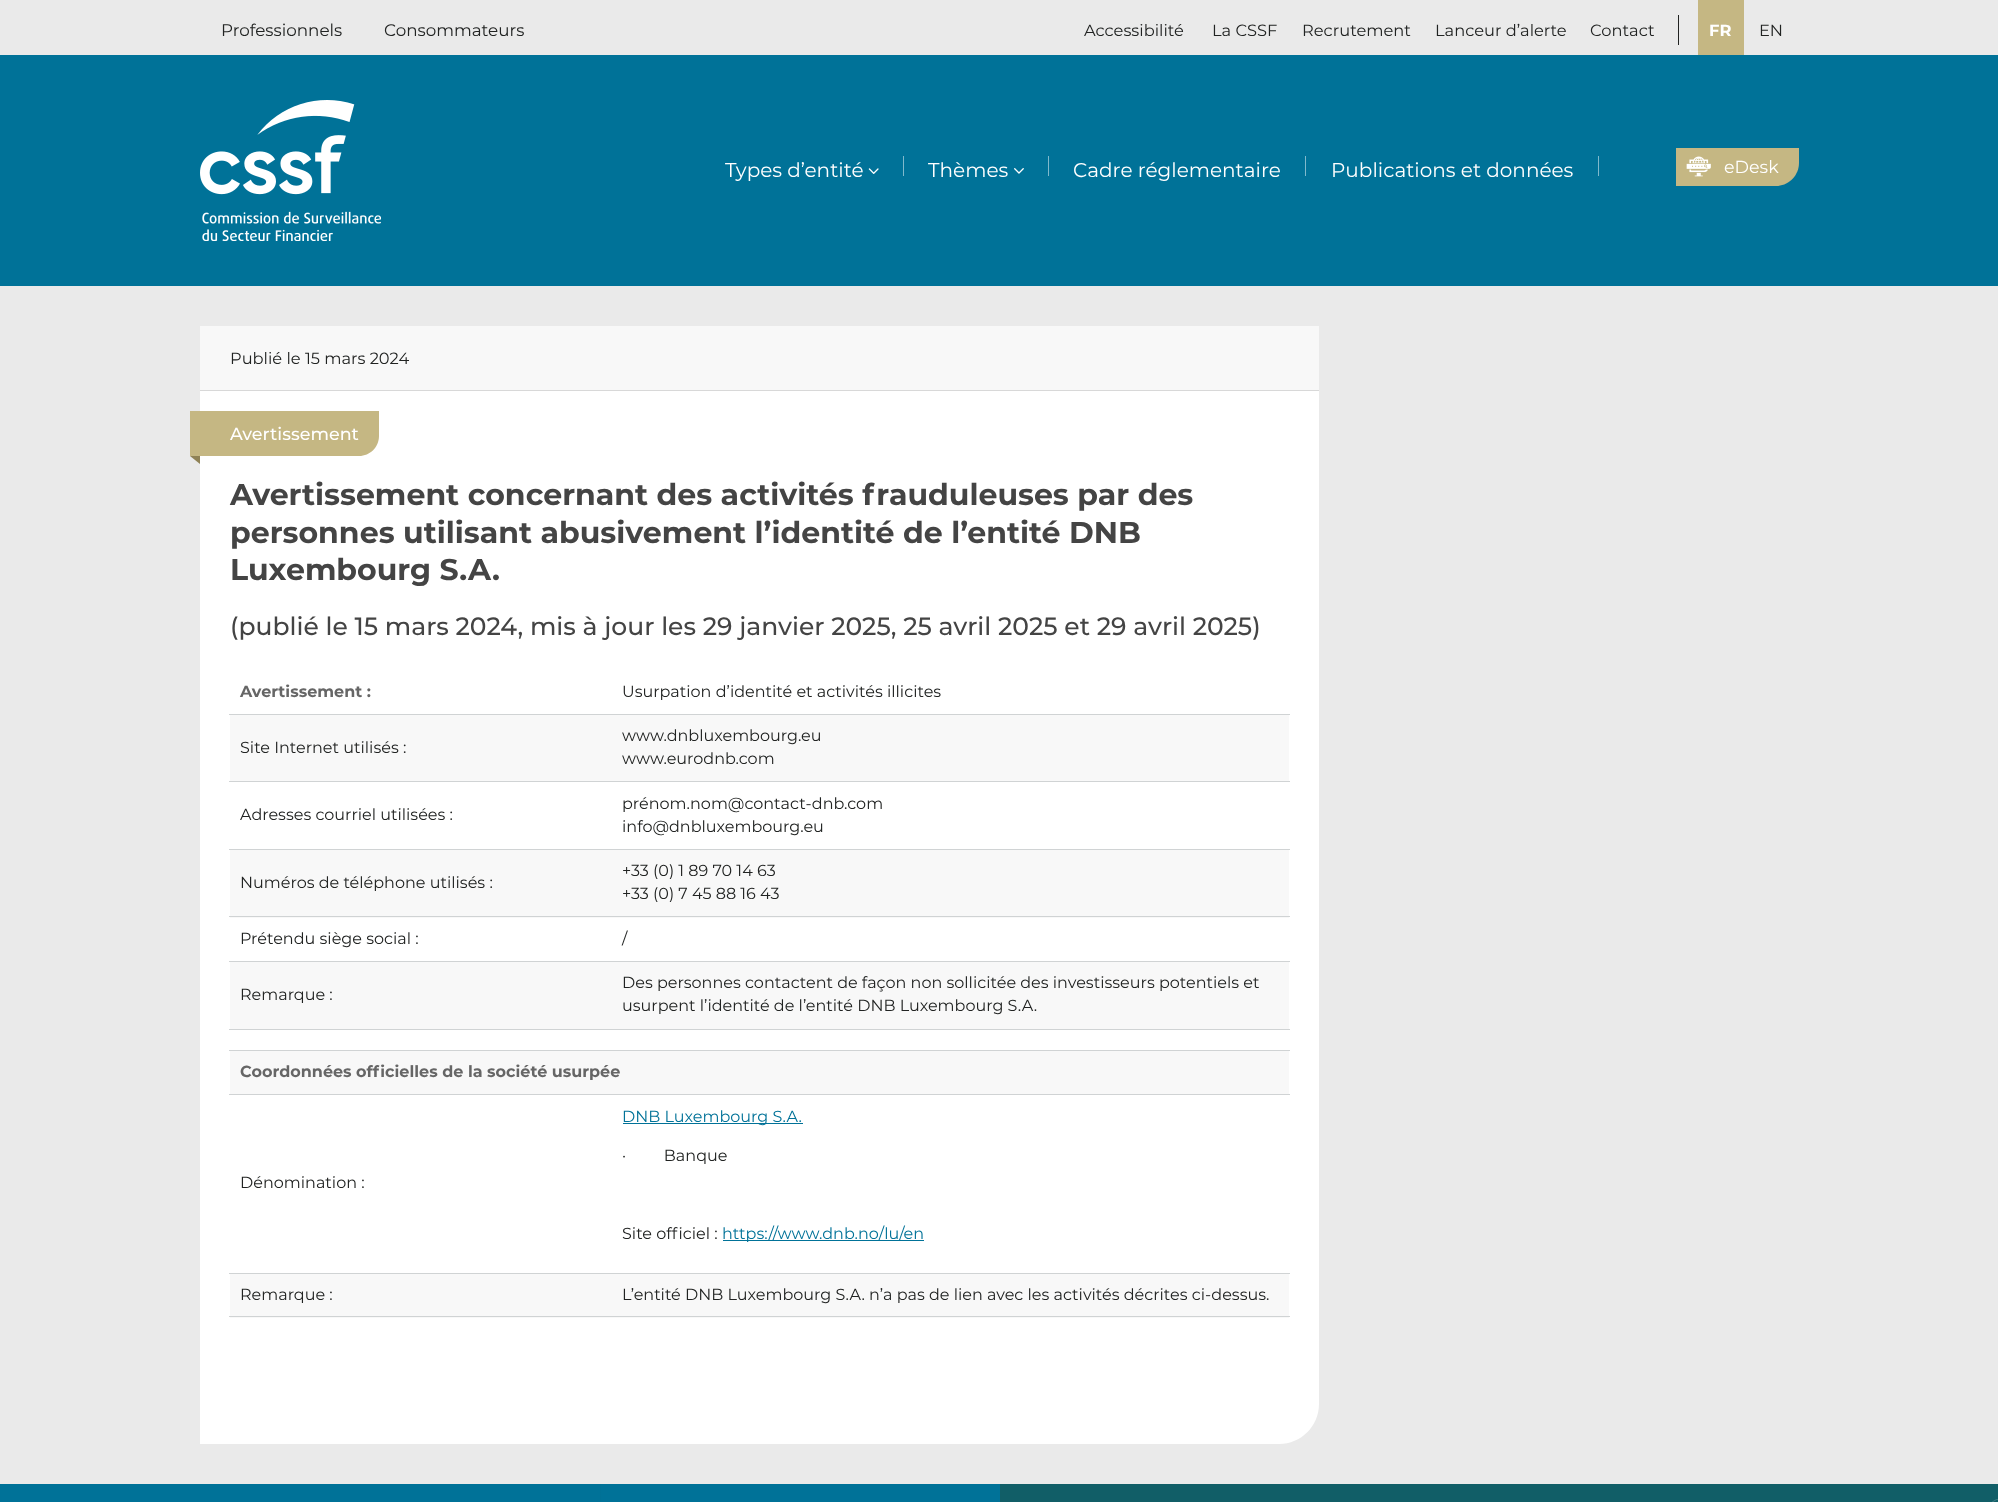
<svg xmlns="http://www.w3.org/2000/svg" width="1998" height="1502">
<style>
.a{font:16.75px Montserrat;fill:#212322}
.b{font:16.25px Montserrat;fill:#212322}
.c{font:bold 16.25px Montserrat;fill:#fff}
.d{font:20px Montserrat;fill:#fff}
.e{font:17.5px Montserrat;fill:#fff}
.f{font:500 17.5px Montserrat;fill:#fff}
.g{font:bold 30px Montserrat;fill:#444}
.h{font:500 25px Montserrat;fill:#444}
.i{font:bold 16px Montserrat;fill:#666}
.j{font:16px Montserrat;fill:#212322}
.k{font:16px Montserrat;fill:#007298}
</style>
<defs>
<linearGradient id="g1" gradientUnits="userSpaceOnUse" x1="0" y1="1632" x2="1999" y2="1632"><stop offset="0.3" stop-color="#007298"/><stop offset="0.31" stop-color="#115e67"/></linearGradient>
</defs>
<rect width="100%" height="100%" fill="#eaeaea"/>
<path fill="#212322" d="M1678 15h1v30H1678z"/>
<path fill="#c5b783" d="M1698 0h46v55H1698z"/>
<path fill="#007298" d="M0 55h1998v231H0z"/>
<image href="1.png" x="200" y="100" width="181" height="141"/>
<image href="2.png" x="868" y="168" width="11" height="6"/>
<path fill="#80b9cc" d="M903 156h1v20H903z"/>
<image href="3.png" x="1014" y="168" width="10" height="6"/>
<path fill="#80b9cc" d="M1048 156h1v20H1048z"/>
<path fill="#80b9cc" d="M1305 156h1v20H1305z"/>
<path fill="#80b9cc" d="M1598 156h1v20H1598z"/>
<path fill="#c5b783" d="M1676 148h123v15c0 12.5-10.5 23-23 23h-100z"/>
<image href="4.png" x="1686" y="156" width="25" height="21"/>
<path fill="#f8f8f8" d="M200 326h1119v64H200z"/>
<path fill="#d8d8d8" d="M200 390h1119v1H200z"/>
<path fill="#fff" d="M200 391h1119v1013c0 22-18 40-40 40h-1079z"/>
<path fill="#c5b783" d="M190 411h189v25c0 11-9 20-20 20h-169z"/>
<path fill="#8f8256" d="M200 456v8l-10-8z"/>
<path fill="#d0d3d4" d="M229 714h1061v1H229z"/>
<path fill="#f8f8f8" d="M230 715h1059v66H230z"/>
<path fill="#d0d3d4" d="M229 781h1061v1H229z"/>
<path fill="#d0d3d4" d="M229 849h1061v1H229z"/>
<path fill="#f8f8f8" d="M230 850h1059v68H230z"/>
<path fill="#d0d3d4" d="M229 916h1061v1H229z"/>
<path fill="#d0d3d4" d="M229 961h1061v1H229z"/>
<path fill="#f8f8f8" d="M230 962h1059v67H230z"/>
<path fill="#d0d3d4" d="M229 1029h1061v1H229z"/>
<path fill="#d0d3d4" d="M229 1050h1061v1H229z"/>
<path fill="#f8f8f8" d="M230 1051h1059v43H230z"/>
<path fill="#d0d3d4" d="M229 1094h1061v1H229z"/>
<path fill="#d0d3d4" d="M229 1273h1061v1H229z"/>
<path fill="#007298" d="M623 1123h180v1H623z"/>
<path fill="#007298" d="M723 1240h201v1H723z"/>
<path fill="#f8f8f8" d="M230 1274h1059v44H230z"/>
<path fill="#d0d3d4" d="M229 1316h1061v1H229z"/>
<path fill="url(#g1)" d="M0 1484h1998v18H0z"/>
<path fill="#007298" d="M601 1484h399v18H601z"/>
<image href="5.png" x="1992" y="1499" width="6" height="3"/>
<text class="a" x="221" y="36">Professionnels</text>
<text class="a" x="384" y="36">Consommateurs</text>
<text class="b" x="1084" y="36">Accessibilité</text>
<text class="b" x="1212" y="36">La CSSF</text>
<text class="b" x="1302" y="36">Recrutement</text>
<text class="b" x="1435" y="36">Lanceur d’alerte</text>
<text class="b" x="1590" y="36">Contact</text>
<text class="c" x="1709" y="36">FR</text>
<text class="b" x="1759" y="36">EN</text>
<text class="d" x="725" y="177">Types d’entité</text>
<text class="d" x="928" y="177">Thèmes</text>
<text class="d" x="1073" y="177">Cadre réglementaire</text>
<text class="d" x="1331" y="177">Publications et données</text>
<text class="e" x="1724" y="173">eDesk</text>
<text class="b" x="230" y="364">Publié le 15 mars 2024</text>
<text class="f" x="230" y="440">Avertissement</text>
<text class="g" x="230" y="505">Avertissement concernant des activités frauduleuses par des</text>
<text class="g" x="230" y="543">personnes utilisant abusivement l’identité de l’entité DNB</text>
<text class="g" x="230" y="580">Luxembourg S.A.</text>
<text class="h" x="230" y="635">(publié le 15 mars 2024, mis à jour les 29 janvier 2025, 25 avril 2025 et 29 avril 2025)</text>
<text class="i" x="240" y="697">Avertissement :</text>
<text class="j" x="622" y="697">Usurpation d’identité et activités illicites</text>
<text class="j" x="240" y="753">Site Internet utilisés :</text>
<text class="j" x="622" y="741">www.dnbluxembourg.eu</text>
<text class="j" x="622" y="764">www.eurodnb.com</text>
<text class="j" x="240" y="820">Adresses courriel utilisées :</text>
<text class="j" x="622" y="809">prénom.nom@contact-dnb.com</text>
<text class="j" x="622" y="832">info@dnbluxembourg.eu</text>
<text class="j" x="240" y="888">Numéros de téléphone utilisés :</text>
<text class="j" x="622" y="876">+33 (0) 1 89 70 14 63</text>
<text class="j" x="622" y="899">+33 (0) 7 45 88 16 43</text>
<text class="j" x="240" y="944">Prétendu siège social :</text>
<text class="j" x="622" y="944">/</text>
<text class="j" x="240" y="1000">Remarque :</text>
<text class="j" x="622" y="988">Des personnes contactent de façon non sollicitée des investisseurs potentiels et</text>
<text class="j" x="622" y="1011">usurpent l’identité de l’entité DNB Luxembourg S.A.</text>
<text class="i" x="240" y="1077">Coordonnées officielles de la société usurpée</text>
<text class="j" x="240" y="1188">Dénomination :</text>
<text class="k" x="622" y="1122">DNB Luxembourg S.A.</text>
<text class="j" xml:space="preserve" x="622" y="1161">·         Banque</text>
<text class="j" x="622" y="1239">Site officiel :</text>
<text class="k" x="722" y="1239">https://www.dnb.no/lu/en</text>
<text class="j" x="240" y="1300">Remarque :</text>
<text class="j" x="622" y="1300">L’entité DNB Luxembourg S.A. n’a pas de lien avec les activités décrites ci-dessus.</text>
</svg>
